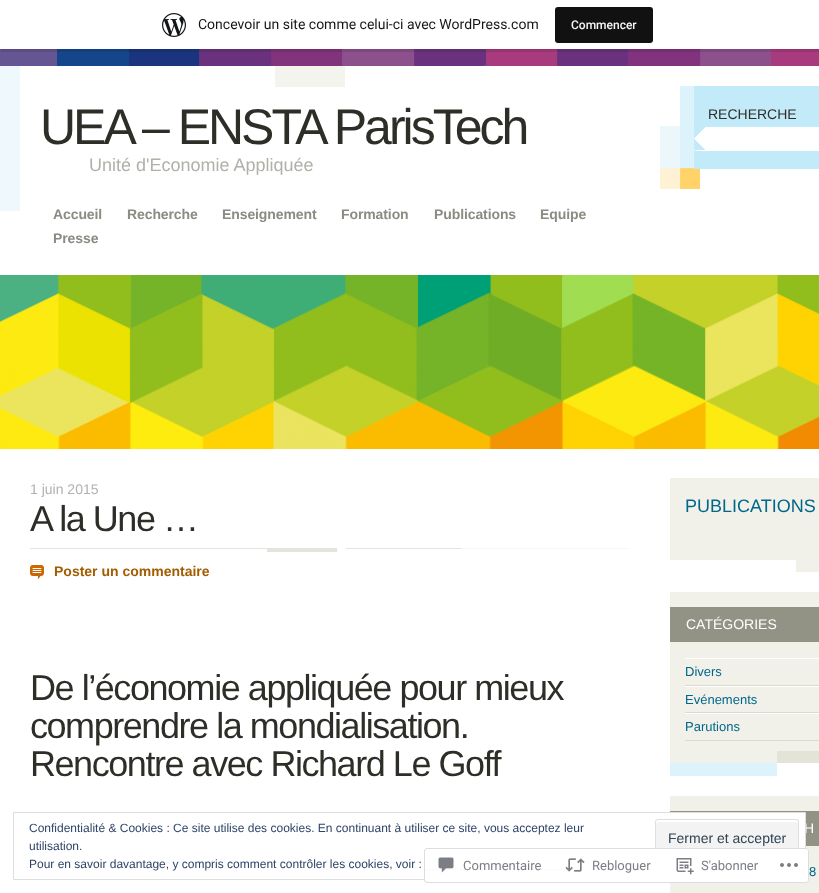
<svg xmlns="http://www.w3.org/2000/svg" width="819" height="893">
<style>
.a{font:14px Roboto;fill:#171717}
.b{font:500 12px Roboto;fill:#f6f7f7}
.c{font:50px Arimo;letter-spacing:-3px;fill:#2e2e29}
.d{font:18px Arimo;fill:#b0b1a8}
.e{font:bold 14px Arimo;letter-spacing:-0.1px;fill:#8a8b82}
.f{font:14px Arimo;fill:#2e2e29}
.g{font:14px Arimo;fill:#b1b1b1}
.h{font:36px Arimo;letter-spacing:-1.45px;fill:#2e2e29}
.i{font:bold 14px Arimo;fill:#a35c00}
.j{font:18px Arimo;fill:#006789}
.k{font:14px Arimo;fill:#fff}
.l{font:13px Arimo;fill:#006789}
.m{font:12px Arimo;fill:#2e4467}
.n{font:14px Arimo;fill:#2e4453}
.o{font:13px Roboto;fill:#7b7f84}
</style>
<rect width="100%" height="100%" fill="#fff"/>
<image href="1.png" x="0" y="49" width="819" height="17"/>
<path fill="#0000000d" filter="blur(1px)" d="M0 1h819v49H0z"/>
<path fill="#00000014" d="M1 49v3h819v-49h-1v46z"/>
<path fill="#fff" d="M0 0h819v49H0z"/>
<image href="2.png" x="162" y="13" width="24" height="24"/>
<rect fill="#111" x="555" y="7" width="98" height="36" rx="3"/>
<image href="3.png" x="0" y="66" width="345" height="145"/>
<image href="4.png" x="660" y="86" width="40" height="103"/>
<path fill="#c3eaf8" d="M694 86h125v83H694z"/>
<rect fill="#fff" x="694" y="127" width="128" height="24" rx="3"/>
<image href="5.png" x="694" y="127" width="11" height="23"/>
<image href="6.png" x="0" y="275" width="819" height="174"/>
<image href="7.png" x="30" y="548" width="599" height="4"/>
<image href="8.png" x="30" y="565" width="14" height="14"/>
<path fill="#f1f1ea" d="M670 478h149v94H670z"/>
<path fill="#fff" d="M670 560h126v12H670z"/>
<path fill="#f1f1ea" d="M670 592h149v159H670z"/>
<image href="9.png" x="670" y="751" width="149" height="25"/>
<path fill="#929385" d="M670 607h149v35H670z"/>
<path fill="#fff" d="M685 658h134v1H685z"/>
<path fill="#dadacd" d="M685 685h134v1H685z"/>
<path fill="#fff" d="M685 686h134v1H685z"/>
<path fill="#dadacd" d="M685 712h134v1H685z"/>
<path fill="#fff" d="M685 713h134v1H685z"/>
<path fill="#dadacd" d="M685 740h134v1H685z"/>
<path fill="#f1f1ea" d="M670 796h149v97H670z"/>
<path fill="#929385" d="M670 811h149v35H670z"/>
<path fill="#fff" d="M670 813h135v66H670z"/>
<text class="a" x="198" y="29">Concevoir un site comme celui-ci avec WordPress.com</text>
<text class="b" x="571" y="29">Commencer</text>
<text class="c" x="40" y="144">UEA – ENSTA ParisTech</text>
<text class="d" x="89" y="171">Unité d'Economie Appliquée</text>
<text class="e" x="53" y="219">Accueil</text>
<text class="e" x="127" y="219">Recherche</text>
<text class="e" x="222" y="219">Enseignement</text>
<text class="e" x="341" y="219">Formation</text>
<text class="e" x="434" y="219">Publications</text>
<text class="e" x="540" y="219">Equipe</text>
<text class="e" x="53" y="243">Presse</text>
<text class="f" x="708" y="119">RECHERCHE</text>
<text class="g" x="30" y="494">1 juin 2015</text>
<text class="h" x="30" y="531">A la Une …</text>
<text class="i" x="54" y="576">Poster un commentaire</text>
<text class="h" x="30" y="700">De l’économie appliquée pour mieux</text>
<text class="h" x="30" y="738">comprendre la mondialisation.</text>
<text class="h" x="30" y="776">Rencontre avec Richard Le Goff</text>
<text class="j" x="685" y="512">PUBLICATIONS</text>
<text class="k" x="686" y="629">CATÉGORIES</text>
<text class="l" x="685" y="676">Divers</text>
<text class="l" x="685" y="704">Evénements</text>
<text class="l" x="685" y="731">Parutions</text>
<text class="k" x="804" y="833">H</text>
<text class="l" x="809" y="876">8</text>
<path fill="none" stroke="#dedede" d="M13.5 812.5h792v67H13.5z"/>
<text class="m" x="29" y="832">Confidentialité &amp; Cookies : Ce site utilise des cookies. En continuant à utiliser ce site, vous acceptez leur</text>
<text class="m" x="29" y="850">utilisation.</text>
<rect fill="#f3f3f3" x="655" y="819" width="144" height="39" rx="3"/>
<path fill="#fff" d="M658 822h138c1 0 2 1 2 2c0-1 0-3-1-4h-139c-2 0-2 2-2 4c0-1 1-2 2-2z"/>
<rect fill="none" stroke="#dedede" x="655.5" y="819.5" width="143" height="38" rx="2.5"/>
<text class="n" x="668" y="843">Fermer et accepter</text>
<text class="m" x="29" y="868">Pour en savoir davantage, y compris comment contrôler les cookies, voir :</text>
<path fill="#2e4467" d="M425 869h155v1H425z"/>
<rect fill="#fffffffa" x="424" y="848" width="385" height="35" rx="3"/>
<rect fill="none" stroke="#dcdcdefa" x="424.5" y="848.5" width="384" height="34" rx="2.5"/>
<image href="10.png" x="438" y="857" width="16" height="16"/>
<text class="o" x="463" y="870">Commentaire</text>
<image href="11.png" x="565" y="858" width="20" height="14"/>
<text class="o" x="592" y="870">Rebloguer</text>
<image href="12.png" x="676" y="858" width="18" height="17"/>
<text class="o" x="701" y="870">S'abonner</text>
<image href="13.png" x="780" y="863" width="18" height="4"/>
</svg>
